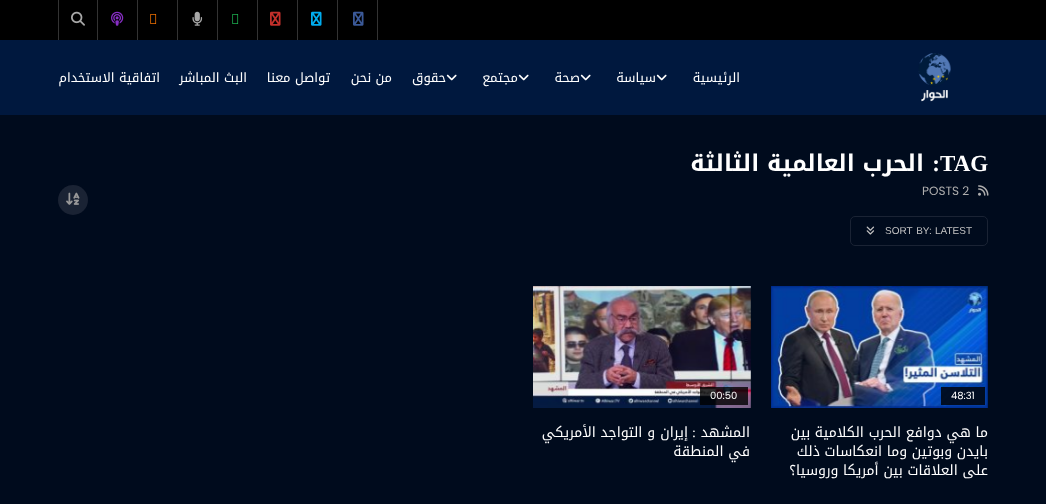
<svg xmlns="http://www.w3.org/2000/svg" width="1046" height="504">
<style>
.a{font:13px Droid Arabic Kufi;direction:rtl;fill:#fff}
.b{font:bold 23px Liberation Serif;fill:#fff}
.c{font:bold 23px Liberation Serif;direction:rtl;fill:#fff}
.d{font:bold 23px Droid Arabic Kufi;direction:rtl;fill:#fff}
.e{font:12px Poppins;fill:#aeaeae}
.f{font:10px Liberation Sans;fill:#c4c4c4}
.g{font:10px Poppins;fill:#fff}
.h{font:14px Droid Arabic Kufi;direction:rtl;fill:#fff}
.i{font:14px Liberation Serif;direction:rtl;fill:#fff}
</style>
<rect width="100%" height="100%" fill="#000b1d"/>
<path fill="#00183e" d="M0 40h1046v75H0z"/>
<path fill="#000" d="M0 0h1046v40H0z"/>
<path fill="#333" d="M377 0h1v40H377z"/>
<image href="1.png" x="353" y="11" width="11" height="15"/>
<path fill="#333" d="M337 0h1v40H337z"/>
<image href="2.png" x="311" y="11" width="11" height="15"/>
<path fill="#333" d="M297 0h1v40H297z"/>
<image href="3.png" x="270" y="11" width="11" height="15"/>
<path fill="#333" d="M257 0h1v40H257z"/>
<image href="4.png" x="232" y="14" width="7" height="10"/>
<path fill="#333" d="M217 0h1v40H217z"/>
<image href="5.png" x="192" y="11" width="11" height="15"/>
<path fill="#333" d="M177 0h1v40H177z"/>
<image href="6.png" x="150" y="14" width="7" height="10"/>
<path fill="#333" d="M137 0h1v40H137z"/>
<image href="7.png" x="111" y="11" width="13" height="15"/>
<path fill="#333" d="M97 0h1v40H97z"/>
<path fill="#333" d="M58 0h1v40H58z"/>
<image href="8.png" x="71" y="11" width="14" height="15"/>
<image href="9.png" x="918" y="53" width="33" height="49"/>
<image href="10.png" x="656" y="74" width="11" height="7"/>
<image href="10.png" x="580" y="74" width="11" height="7"/>
<image href="10.png" x="518" y="74" width="11" height="7"/>
<image href="10.png" x="446" y="74" width="11" height="7"/>
<image href="11.png" x="978" y="185" width="11" height="11"/>
<rect fill="none" stroke="#1a2334" x="850.5" y="216.5" width="137" height="29" rx="4.5"/>
<image href="12.png" x="866" y="226" width="9" height="9"/>
<circle fill="#1a2334" cx="73" cy="200" r="15"/>
<image href="13.png" x="66" y="192" width="14" height="13"/>
<image href="14.png" x="771" y="286" width="217" height="122"/>
<path fill="#000000cc" d="M941 387h44v18H941z"/>
<image href="15.png" x="533" y="286" width="218" height="122"/>
<path fill="#000000cc" d="M700 387h48v18H700z"/>
<text class="a" x="740" y="82">الرئيسية</text>
<text class="a" x="656" y="82">سياسة</text>
<text class="a" x="580" y="82">صحة</text>
<text class="a" x="518" y="82">مجتمع</text>
<text class="a" x="446" y="82">حقوق</text>
<text class="a" x="392" y="82">من نحن</text>
<text class="a" x="330" y="82">تواصل معنا</text>
<text class="a" x="247" y="82">البث المباشر</text>
<text class="a" x="160" y="82">اتفاقية الاستخدام</text>
<text class="b" x="940" y="171">TAG</text>
<text class="c" x="940" y="171">:</text>
<text class="d" x="924" y="171">الحرب العالمية الثالثة</text>
<text class="e" x="922" y="195">POSTS 2</text>
<text class="f" x="935" y="234">LATEST</text>
<text class="f" x="885" y="234" word-spacing="1">SORT BY:</text>
<text class="g" x="951" y="399">48:31</text>
<text class="h" x="988" y="437">ما هي دوافع الحرب الكلامية بين</text>
<text class="h" x="988" y="456">بايدن وبوتين وما انعكاسات ذلك</text>
<text class="h" x="988" y="475">على العلاقات بين أمريكا وروسيا؟</text>
<text class="g" x="710" y="399">00:50</text>
<text class="h" x="750" y="437">المشهد</text>
<text class="i" x="696" y="437">:</text>
<text class="h" x="688" y="437">إيران</text>
<text class="h" x="655" y="437">و التواجد الأمريكي</text>
<text class="h" x="750" y="456">في المنطقة</text>
</svg>
